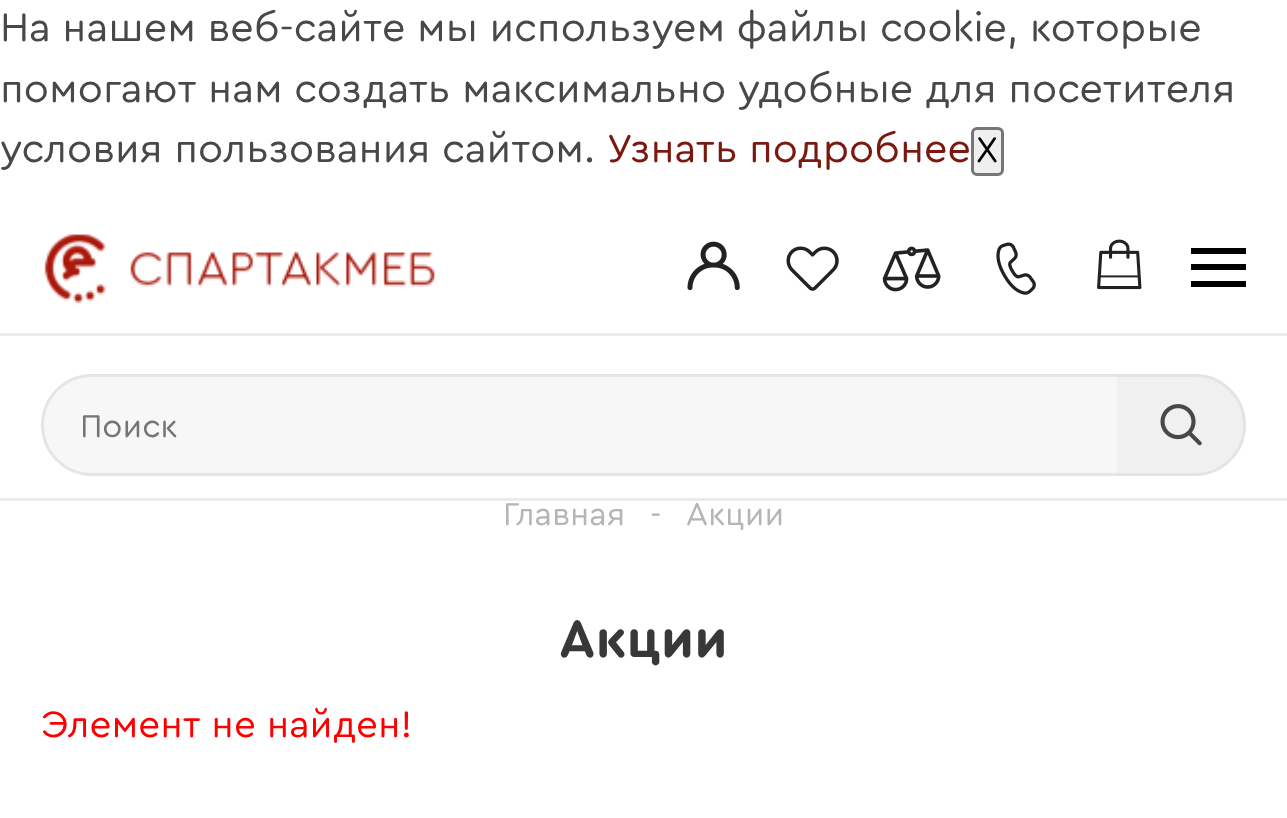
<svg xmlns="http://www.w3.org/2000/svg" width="1287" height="818">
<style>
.a{font:41.25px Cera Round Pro;fill:#484848}
.b{font:41.25px Cera Round Pro;fill:#7b1910}
.c{font:37px Cera Round Pro;fill:#000}
.d{font:33px Cera Round Pro;fill:#757575}
.e{font:33px Cera Round Pro;fill:#b6b5b5}
.f{font:bold 55px Cera Round Pro;fill:#383838}
.g{font:38.5px Cera Round Pro;fill:#f00}
</style>
<rect width="100%" height="100%" fill="#fff"/>
<rect fill="#efefef" stroke="#767676" stroke-width="3" x="972.5" y="128.5" width="30" height="46" rx="4.5"/>
<path fill="#e9ecef" d="M0 333h1287v3H0z"/>
<image href="1.png" x="44" y="234" width="391" height="71"/>
<image href="2.png" x="687" y="241" width="53" height="50"/>
<image href="3.png" x="786" y="246" width="53" height="45"/>
<image href="4.png" x="882" y="246" width="59" height="46"/>
<image href="5.png" x="996" y="242" width="40" height="53"/>
<image href="6.png" x="1097" y="239" width="45" height="51"/>
<path fill="#000" d="M1191 264h55v6H1191z"/>
<path fill="#000" d="M1191 248h55v6H1191z"/>
<path fill="#000" d="M1191 281h55v6H1191z"/>
<path fill="#e9ecef" d="M0 498h1287v3H0z"/>
<rect fill="#f7f7f7" stroke="#e5e5e5" stroke-width="3" x="42.5" y="375.5" width="1202" height="99" rx="49.5"/>
<path fill="#e5e5e554" d="M1117 374h78c28 0 51 23 51 51c0 28-23 51-51 51h-78z"/>
<image href="7.png" x="1160" y="404" width="42" height="42"/>
<text class="a" x="0" y="41">На нашем веб-сайте мы используем файлы cookie, которые</text>
<text class="a" x="0" y="102">помогают нам создать максимально удобные для посетителя</text>
<text class="a" x="0" y="162">условия пользования сайтом.</text>
<text class="b" x="607" y="162">Узнать подробнее</text>
<text class="c" x="976" y="162">X</text>
<text class="d" x="80" y="437">Поиск</text>
<text class="e" x="503" y="525">Главная</text>
<text class="e" x="650" y="525">-</text>
<text class="e" x="686" y="525">Акции</text>
<text class="f" x="559" y="657">Акции</text>
<text class="g" x="41" y="737">Элемент не найден!</text>
</svg>
